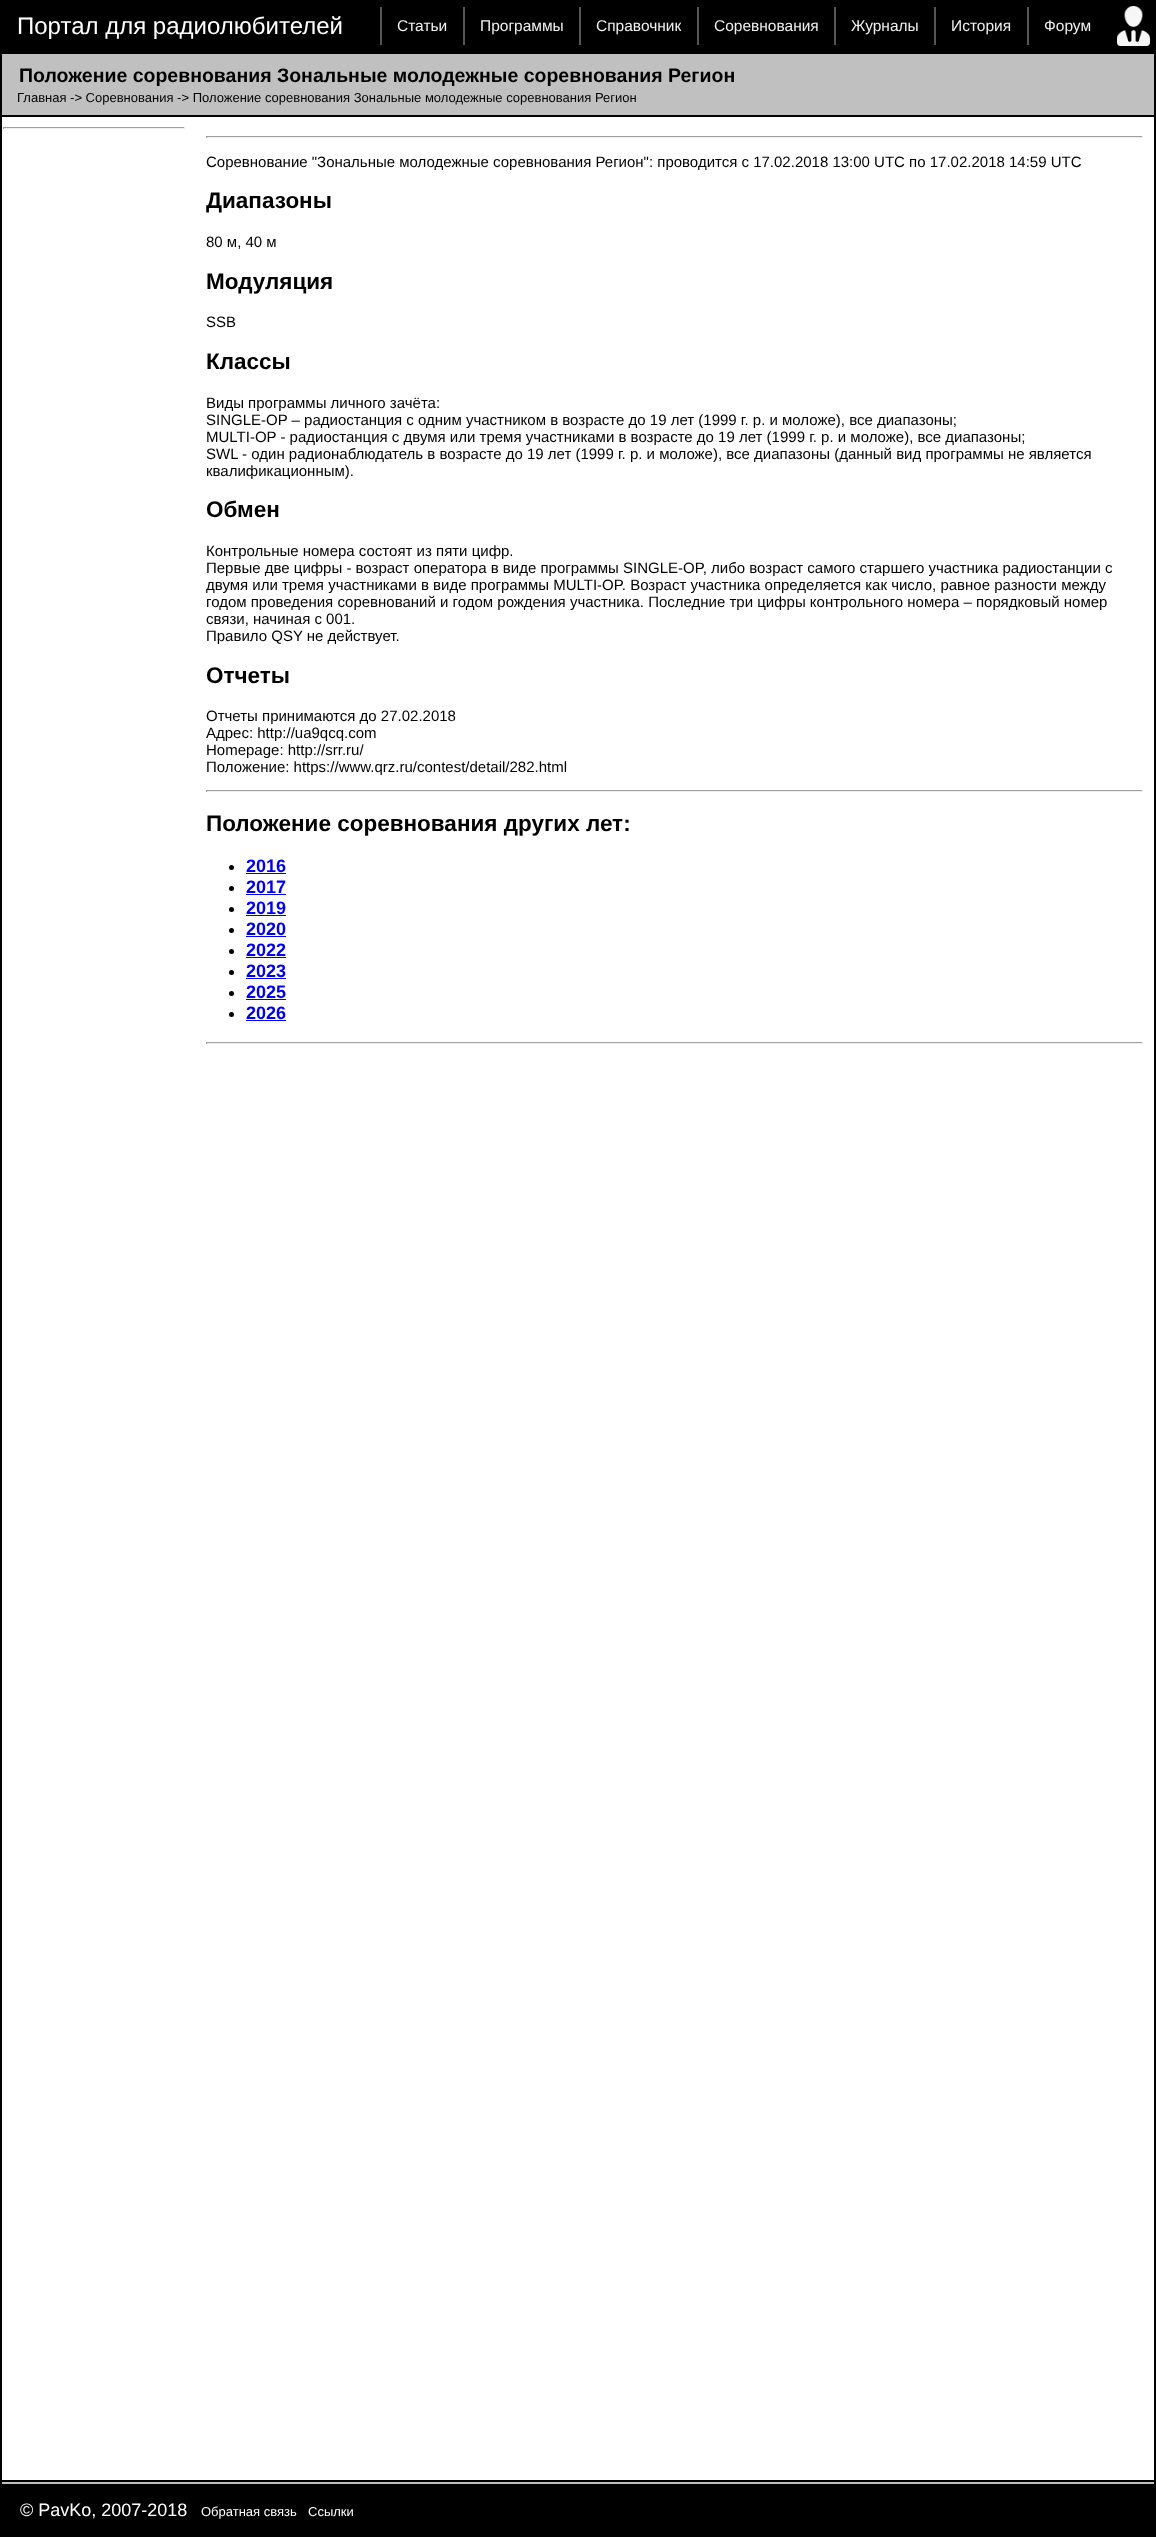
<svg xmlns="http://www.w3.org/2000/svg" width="1156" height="2537">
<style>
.a{font:24px Liberation Sans;fill:#fff}
.b{font:15.5px Liberation Sans;fill:#f0f0f0}
.c{font:bold 19.5px Liberation Sans;fill:#000}
.d{font:13px Liberation Sans;fill:#000}
.e{font:15px Liberation Sans;fill:#000}
.f{font:bold 22.5px Liberation Sans;fill:#000}
.g{font:bold 18px Liberation Sans;fill:#00e}
.h{font:18px Liberation Sans;fill:#fff}
.i{font:13px Liberation Sans;fill:#fff}
</style>
<rect width="100%" height="100%" fill="#000"/>
<path fill="#555" d="M380 7h2v38H380z"/>
<path fill="#555" d="M463 7h2v38H463z"/>
<path fill="#555" d="M579 7h2v38H579z"/>
<path fill="#555" d="M697 7h2v38H697z"/>
<path fill="#555" d="M834 7h2v38H834z"/>
<path fill="#555" d="M934 7h2v38H934z"/>
<path fill="#555" d="M1027 7h2v38H1027z"/>
<image href="1.png" x="1117" y="6" width="33" height="40"/>
<path fill="#c0c0c0" d="M2 54h1152v61H2z"/>
<path fill="#fff" d="M2 117h1152v2363H2z"/>
<path fill="#9f9f9f" d="M3 127h182v1H3z"/>
<path fill="#eee" d="M184 127h1v2H184z"/>
<path fill="#eee" d="M3 128h182v1H3z"/>
<path fill="#9f9f9f" d="M3 127h1v2H3z"/>
<path fill="#9f9f9f" d="M206 136h937v1H206z"/>
<path fill="#eee" d="M1142 136h1v2H1142z"/>
<path fill="#eee" d="M206 137h937v1H206z"/>
<path fill="#9f9f9f" d="M206 136h1v2H206z"/>
<path fill="#9f9f9f" d="M206 790h937v1H206z"/>
<path fill="#eee" d="M1142 790h1v2H1142z"/>
<path fill="#eee" d="M206 791h937v1H206z"/>
<path fill="#9f9f9f" d="M206 790h1v2H206z"/>
<circle fill="#000" cx="231.5" cy="867.5" r="2.5"/>
<path fill="#00e" d="M246 873h40v1H246z"/>
<circle fill="#000" cx="231.5" cy="888.5" r="2.5"/>
<path fill="#00e" d="M246 894h40v1H246z"/>
<circle fill="#000" cx="231.5" cy="909.5" r="2.5"/>
<path fill="#00e" d="M246 915h40v1H246z"/>
<circle fill="#000" cx="231.5" cy="930.5" r="2.5"/>
<path fill="#00e" d="M246 936h40v1H246z"/>
<circle fill="#000" cx="231.5" cy="951.5" r="2.5"/>
<path fill="#00e" d="M246 957h40v1H246z"/>
<circle fill="#000" cx="231.5" cy="972.5" r="2.5"/>
<path fill="#00e" d="M246 978h40v1H246z"/>
<circle fill="#000" cx="231.5" cy="993.5" r="2.5"/>
<path fill="#00e" d="M246 999h40v1H246z"/>
<circle fill="#000" cx="231.5" cy="1014.5" r="2.5"/>
<path fill="#00e" d="M246 1020h40v1H246z"/>
<path fill="#9f9f9f" d="M206 1042h937v1H206z"/>
<path fill="#eee" d="M1142 1042h1v2H1142z"/>
<path fill="#eee" d="M206 1043h937v1H206z"/>
<path fill="#9f9f9f" d="M206 1042h1v2H206z"/>
<path fill="#c0c0c0" d="M2 2482h1152v2H2z"/>
<text class="a" x="17" y="34">Портал для радиолюбителей</text>
<text class="b" x="397" y="31">Статьи</text>
<text class="b" x="480" y="31">Программы</text>
<text class="b" x="596" y="31">Справочник</text>
<text class="b" x="714" y="31">Соревнования</text>
<text class="b" x="851" y="31">Журналы</text>
<text class="b" x="951" y="31">История</text>
<text class="b" x="1044" y="31">Форум</text>
<text class="c" x="19" y="82">Положение соревнования Зональные молодежные соревнования Регион</text>
<text class="d" x="17" y="102">Главная -&gt; Соревнования -&gt; Положение соревнования Зональные молодежные соревнования Регион</text>
<text class="e" x="206" y="167">Соревнование "Зональные молодежные соревнования Регион": проводится с 17.02.2018 13:00 UTC по 17.02.2018 14:59 UTC</text>
<text class="f" x="206" y="208">Диапазоны</text>
<text class="e" x="206" y="247">80 м, 40 м</text>
<text class="f" x="206" y="289">Модуляция</text>
<text class="e" x="206" y="327">SSB</text>
<text class="f" x="206" y="369">Классы</text>
<text class="e" x="206" y="408">Виды программы личного зачёта:</text>
<text class="e" x="206" y="425">SINGLE-OP – радиостанция с одним участником в возрасте до 19 лет (1999 г. р. и моложе), все диапазоны;</text>
<text class="e" x="206" y="442">MULTI-OP - радиостанция с двумя или тремя участниками в возрасте до 19 лет (1999 г. р. и моложе), все диапазоны;</text>
<text class="e" x="206" y="459">SWL - один радионаблюдатель в возрасте до 19 лет (1999 г. р. и моложе), все диапазоны (данный вид программы не является</text>
<text class="e" x="206" y="476">квалификационным).</text>
<text class="f" x="206" y="517">Обмен</text>
<text class="e" x="206" y="556">Контрольные номера состоят из пяти цифр.</text>
<text class="e" x="206" y="573">Первые две цифры - возраст оператора в виде программы SINGLE-OP, либо возраст самого старшего участника радиостанции с</text>
<text class="e" x="206" y="590">двумя или тремя участниками в виде программы MULTI-OP. Возраст участника определяется как число, равное разности между</text>
<text class="e" x="206" y="607">годом проведения соревнований и годом рождения участника. Последние три цифры контрольного номера – порядковый номер</text>
<text class="e" x="206" y="624">связи, начиная с 001.</text>
<text class="e" x="206" y="641">Правило QSY не действует.</text>
<text class="f" x="206" y="683">Отчеты</text>
<text class="e" x="206" y="721">Отчеты принимаются до 27.02.2018</text>
<text class="e" x="206" y="738">Адрес: http://ua9qcq.com</text>
<text class="e" x="206" y="755">Homepage: http://srr.ru/</text>
<text class="e" x="206" y="772">Положение: https://www.qrz.ru/contest/detail/282.html</text>
<text class="f" x="206" y="831">Положение соревнования других лет:</text>
<text class="g" x="246" y="872">2016</text>
<text class="g" x="246" y="893">2017</text>
<text class="g" x="246" y="914">2019</text>
<text class="g" x="246" y="935">2020</text>
<text class="g" x="246" y="956">2022</text>
<text class="g" x="246" y="977">2023</text>
<text class="g" x="246" y="998">2025</text>
<text class="g" x="246" y="1019">2026</text>
<text class="h" x="20" y="2516">© PavKo, 2007-2018</text>
<text class="i" x="201" y="2516">Обратная связь</text>
<text class="i" x="308" y="2516">Ссылки</text>
</svg>
